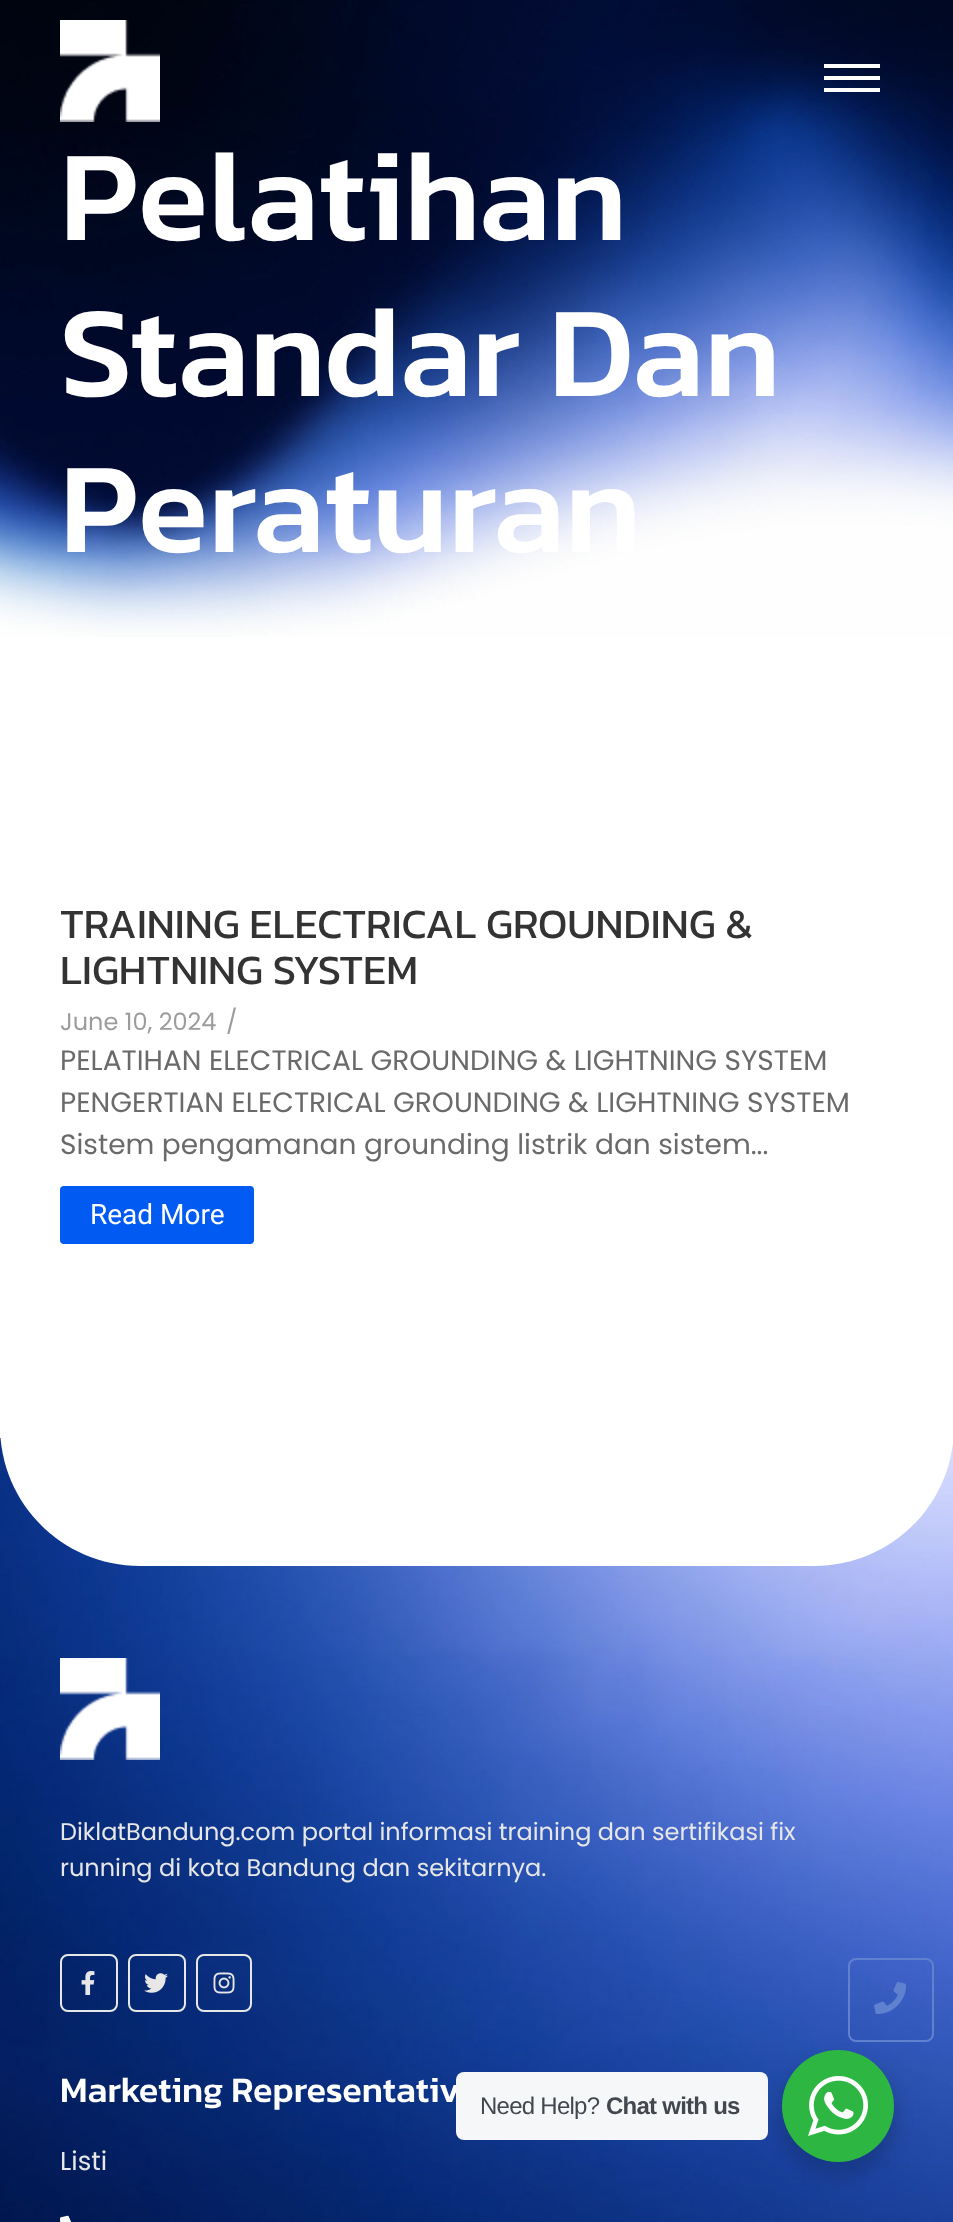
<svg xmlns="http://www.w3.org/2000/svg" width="953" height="2222">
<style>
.a{font:500 130px Kanit;fill:#fff}
.b{font:42px Kanit;fill:#333}
.c{font:24px Poppins;fill:#9c9c9c}
.d{font:28px Poppins;fill:#6a6a6a}
.e{font:28px Roboto;fill:#fff}
.f{font:24px Poppins;fill:#e7e7e7}
.g{font:500 36px Kanit;fill:#fff}
.h{font:26px Poppins;fill:#e7e7e7}
.i{font:24px Liberation Sans;letter-spacing:-0.75px;fill:#43474e}
.j{font:bold 24px Liberation Sans;letter-spacing:-0.75px;fill:#43474e}
</style>
<rect width="100%" height="100%" fill="#fff"/>
<image href="2.png" x="0" y="0" width="953" height="637"/>
<image href="1.png" x="60" y="20" width="100" height="102"/>
<path fill="#fff" d="M824 64h56v4H824z"/>
<path fill="#fff" d="M824 76h56v4H824z"/>
<path fill="#fff" d="M824 88h56v4H824z"/>
<rect fill="#015af2" x="60" y="1186" width="194" height="58" rx="4"/>
<image href="3.png" x="0" y="1438" width="953" height="784"/>
<path fill="#fff" d="M0 1364h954v62c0 77.5-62.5 140-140 140h-674c-77.5 0-140-62.5-140-140z"/>
<image href="4.png" x="60" y="1658" width="100" height="102"/>
<rect fill="none" stroke="#e7e7e7" stroke-width="2" x="61" y="1955" width="56" height="56" rx="7"/>
<image href="5.png" x="81" y="1971" width="14" height="24"/>
<rect fill="none" stroke="#e7e7e7" stroke-width="2" x="129" y="1955" width="56" height="56" rx="7"/>
<image href="6.png" x="144" y="1973" width="24" height="20"/>
<rect fill="none" stroke="#e7e7e7" stroke-width="2" x="197" y="1955" width="54" height="56" rx="7"/>
<image href="7.png" x="213" y="1972" width="22" height="22"/>
<image href="8.png" x="60" y="2215" width="11" height="7"/>
<rect fill="none" stroke="#6081d0" stroke-width="2" x="849" y="1959" width="84" height="82" rx="7"/>
<image href="9.png" x="874" y="1982" width="32" height="32"/>
<rect fill="#00000024" filter="blur(8px)" x="778" y="2058" width="120" height="120" rx="60"/>
<circle fill="#2db742" cx="838" cy="2106" r="56"/>
<image href="10.png" x="808" y="2076" width="60" height="60"/>
<text class="a" x="60" y="240">Pelatihan</text>
<text class="a" x="60" y="396">Standar Dan</text>
<text class="a" x="60" y="552">Peraturan</text>
<text class="b" x="60" y="938">TRAINING ELECTRICAL GROUNDING &amp;</text>
<text class="b" x="60" y="984">LIGHTNING SYSTEM</text>
<text class="c" x="60" y="1030">June 10, 2024</text>
<text class="c" x="226" y="1030">/</text>
<text class="d" x="60" y="1070">PELATIHAN ELECTRICAL GROUNDING &amp; LIGHTNING SYSTEM</text>
<text class="d" x="60" y="1112">PENGERTIAN ELECTRICAL GROUNDING &amp; LIGHTNING SYSTEM</text>
<text class="d" x="60" y="1154">Sistem pengamanan grounding listrik dan sistem...</text>
<text class="e" x="90" y="1224">Read More</text>
<text class="f" x="60" y="1840">DiklatBandung.com portal informasi training dan sertifikasi fix</text>
<text class="f" x="60" y="1876">running di kota Bandung dan sekitarnya.</text>
<text class="g" x="60" y="2102">Marketing Representativ</text>
<text class="h" x="60" y="2170">Listi</text>
<rect fill="#f5f7f9" x="456" y="2072" width="312" height="68" rx="8"/>
<text class="i" x="480" y="2114">Need Help?</text>
<text class="j" x="606" y="2114">Chat with us</text>
</svg>
